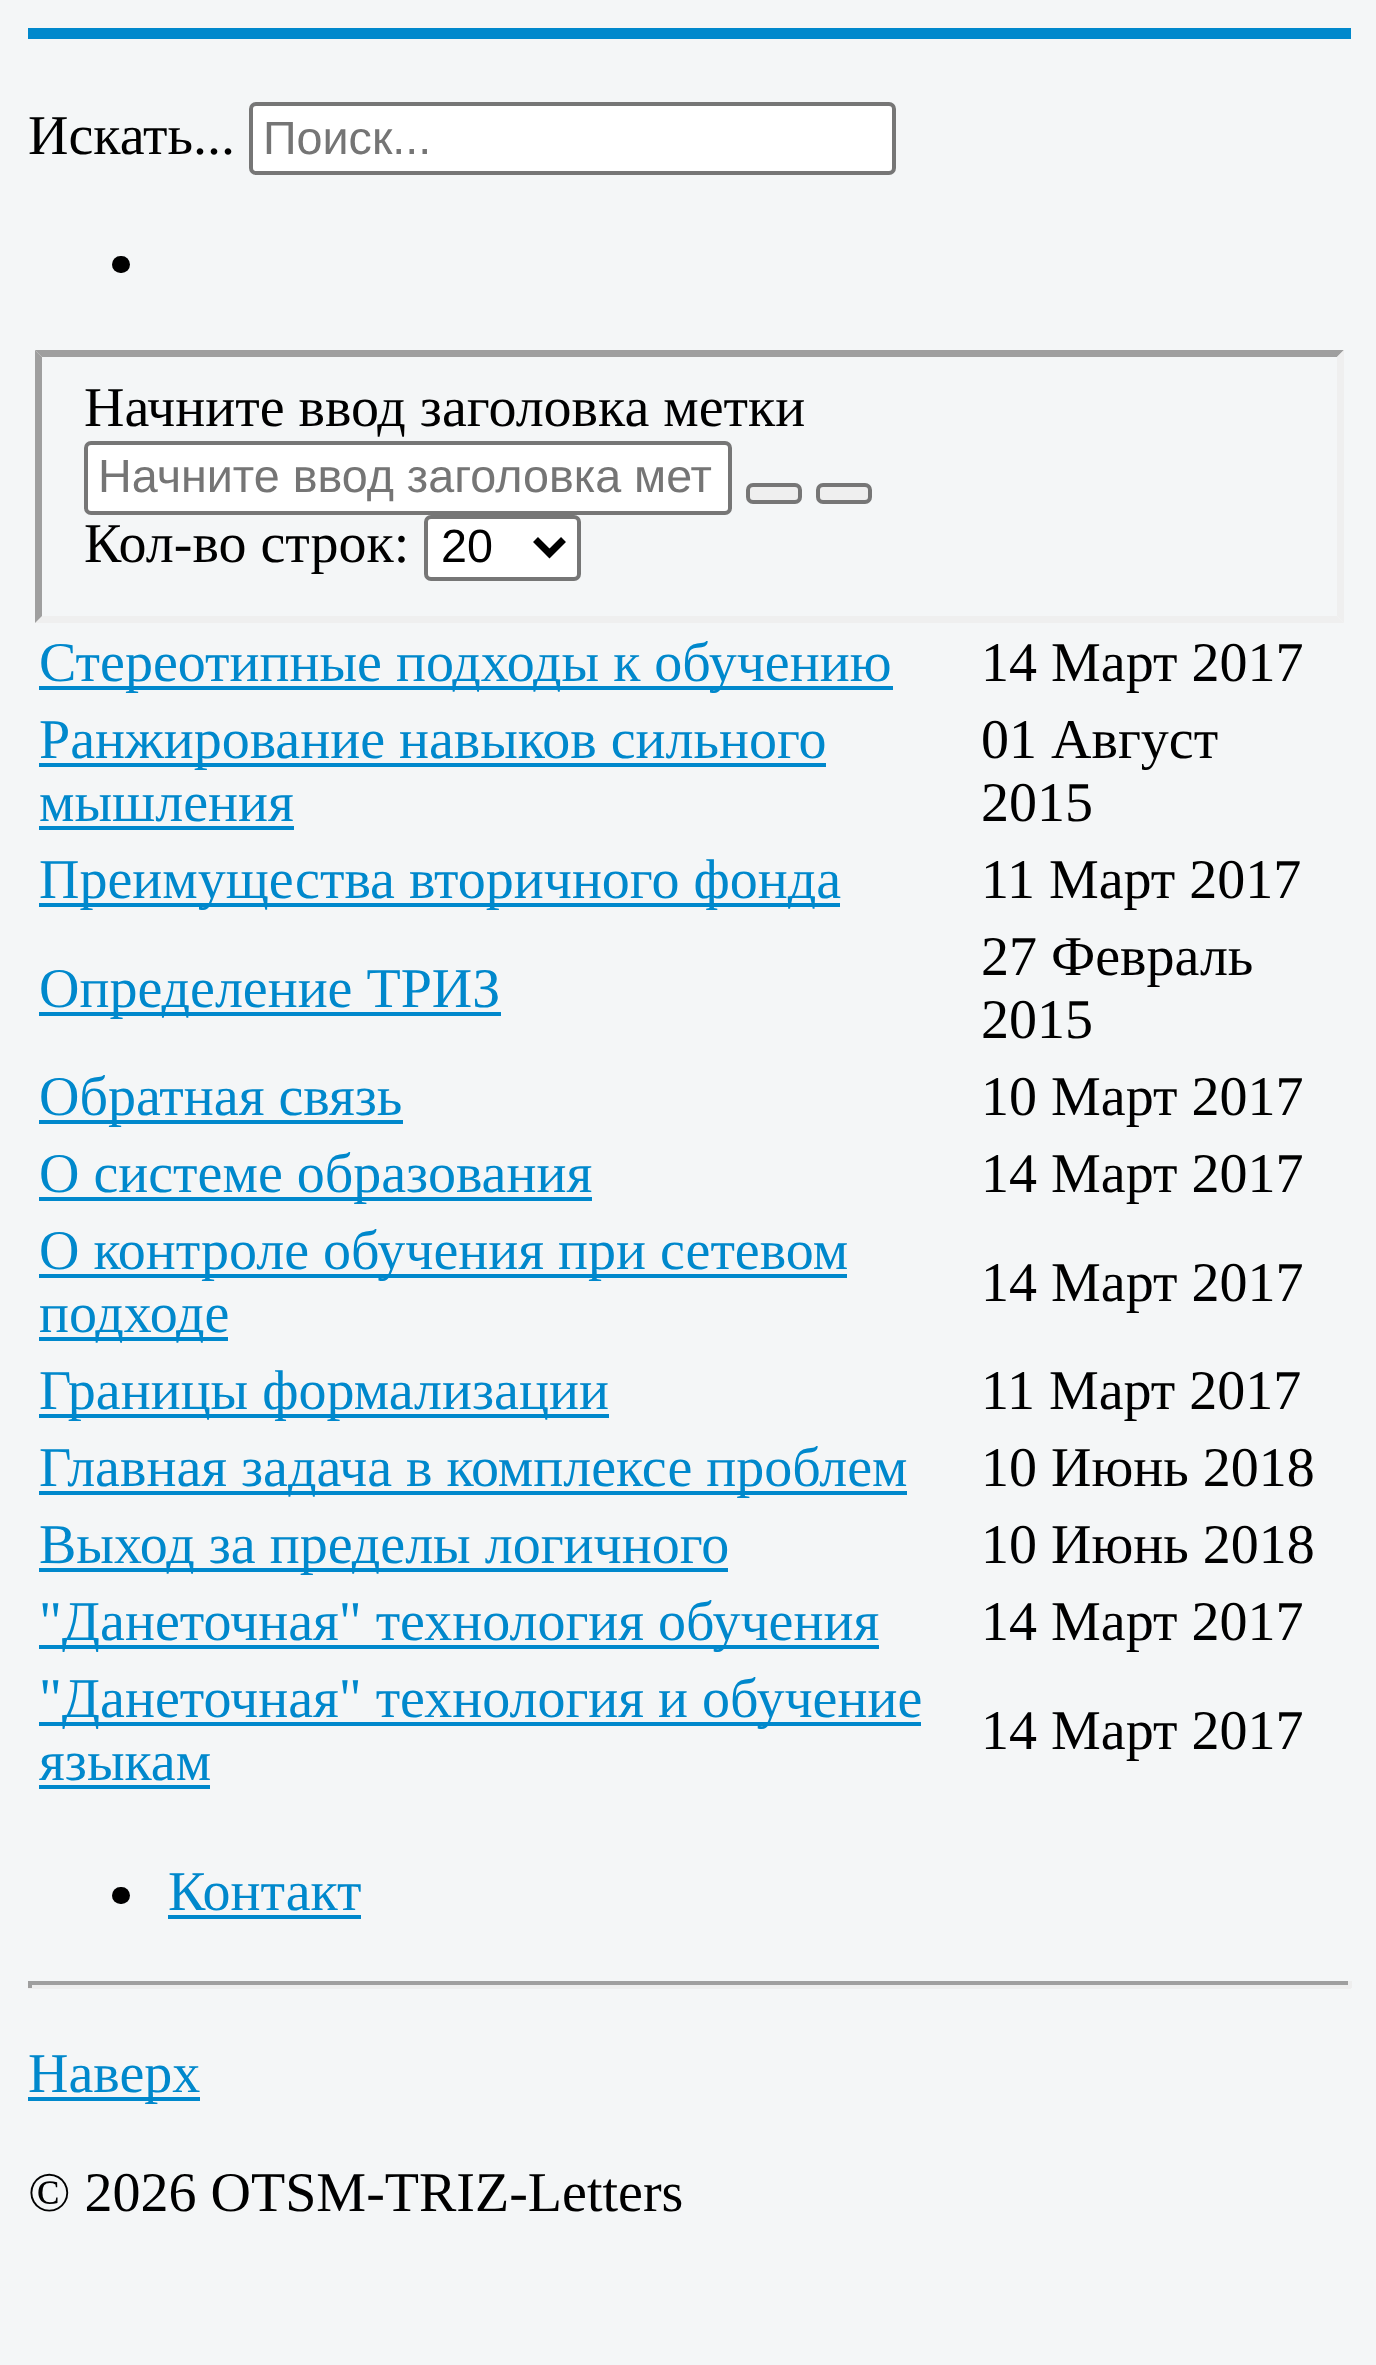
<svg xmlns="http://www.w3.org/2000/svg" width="1376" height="2365">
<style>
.a{font:56px Liberation Serif;fill:#000}
.b{font:46.7px Liberation Sans;fill:#757575}
.c{font:46.7px Liberation Sans;fill:#000}
.d{font:56px Liberation Serif;fill:#08c}
</style>
<rect width="100%" height="100%" fill="#f4f6f7"/>
<path fill="#08c" d="M28 28h1323v11H28z"/>
<rect fill="#fff" stroke="#767676" stroke-width="4" x="251" y="104" width="643" height="69" rx="5"/>
<rect fill="#000" x="112" y="256" width="18" height="17" rx="8.5"/>
<path fill="#9f9f9f" d="M35 350h1309l-7 7h-1295z"/>
<path fill="#efefef" d="M1344 350v273l-7-7v-259z"/>
<path fill="#efefef" d="M1344 623h-1309l7-7h1295z"/>
<path fill="#9f9f9f" d="M35 623v-273l7 7v259z"/>
<rect fill="#fff" stroke="#767676" stroke-width="4" x="86" y="443" width="644" height="70" rx="5"/>
<rect fill="#efefef" stroke="#767676" stroke-width="4" x="748" y="485" width="52" height="17" rx="5"/>
<rect fill="#efefef" stroke="#767676" stroke-width="4" x="818" y="485" width="52" height="17" rx="5"/>
<rect fill="#fff" stroke="#767676" stroke-width="4" x="426" y="517" width="153" height="62" rx="5"/>
<path fill="none" stroke="#000" stroke-width="7" d="M535.5 539.5l14 14l14-14"/>
<path fill="#08c" d="M39 686h854v4H39z"/>
<path fill="#08c" d="M39 763h787v4H39z"/>
<path fill="#08c" d="M39 826h255v4H39z"/>
<path fill="#08c" d="M39 903h801v4H39z"/>
<path fill="#08c" d="M39 1012h462v4H39z"/>
<path fill="#08c" d="M39 1120h364v4H39z"/>
<path fill="#08c" d="M39 1197h553v4H39z"/>
<path fill="#08c" d="M39 1274h808v4H39z"/>
<path fill="#08c" d="M39 1337h189v4H39z"/>
<path fill="#08c" d="M39 1414h570v4H39z"/>
<path fill="#08c" d="M39 1491h868v4H39z"/>
<path fill="#08c" d="M39 1568h689v4H39z"/>
<path fill="#08c" d="M39 1645h840v4H39z"/>
<path fill="#08c" d="M39 1722h882v4H39z"/>
<path fill="#08c" d="M39 1785h171v4H39z"/>
<rect fill="#000" x="112" y="1887" width="18" height="17" rx="8.5"/>
<path fill="#08c" d="M168 1915h193v4H168z"/>
<path fill="#9f9f9f" d="M28 1981h1323v4H28z"/>
<path fill="#eee" d="M1348 1981h4v7H1348z"/>
<path fill="#eee" d="M28 1985h1323v4H28z"/>
<path fill="#9f9f9f" d="M28 1981h4v7H28z"/>
<path fill="#08c" d="M28 2097h172v4H28z"/>
<text class="a" x="28" y="154">Искать...</text>
<text class="b" x="263" y="154">Поиск...</text>
<text class="a" x="84" y="426">Начните ввод заголовка метки</text>
<text class="b" x="98" y="492">Начните ввод заголовка мет</text>
<text class="a" x="84" y="562">Кол-во строк:</text>
<text class="c" x="441" y="562">20</text>
<text class="d" x="39" y="681">Стереотипные подходы к обучению</text>
<text class="a" x="981" y="681">14 Март 2017</text>
<text class="d" x="39" y="758">Ранжирование навыков сильного</text>
<text class="d" x="39" y="821">мышления</text>
<text class="a" x="981" y="758">01 Август</text>
<text class="a" x="981" y="821">2015</text>
<text class="d" x="39" y="898">Преимущества вторичного фонда</text>
<text class="a" x="981" y="898">11 Март 2017</text>
<text class="d" x="39" y="1007">Определение ТРИЗ</text>
<text class="a" x="981" y="975">27 Февраль</text>
<text class="a" x="981" y="1038">2015</text>
<text class="d" x="39" y="1115">Обратная связь</text>
<text class="a" x="981" y="1115">10 Март 2017</text>
<text class="d" x="39" y="1192">О системе образования</text>
<text class="a" x="981" y="1192">14 Март 2017</text>
<text class="d" x="39" y="1269">О контроле обучения при сетевом</text>
<text class="d" x="39" y="1332">подходе</text>
<text class="a" x="981" y="1301">14 Март 2017</text>
<text class="d" x="39" y="1409">Границы формализации</text>
<text class="a" x="981" y="1409">11 Март 2017</text>
<text class="d" x="39" y="1486">Главная задача в комплексе проблем</text>
<text class="a" x="981" y="1486">10 Июнь 2018</text>
<text class="d" x="39" y="1563">Выход за пределы логичного</text>
<text class="a" x="981" y="1563">10 Июнь 2018</text>
<text class="d" x="39" y="1640">"Данеточная" технология обучения</text>
<text class="a" x="981" y="1640">14 Март 2017</text>
<text class="d" x="39" y="1717">"Данеточная" технология и обучение</text>
<text class="d" x="39" y="1780">языкам</text>
<text class="a" x="981" y="1749">14 Март 2017</text>
<text class="d" x="168" y="1910">Контакт</text>
<text class="d" x="28" y="2092">Наверх</text>
<text class="a" x="28" y="2211">© 2026 OTSM-TRIZ-Letters</text>
</svg>
